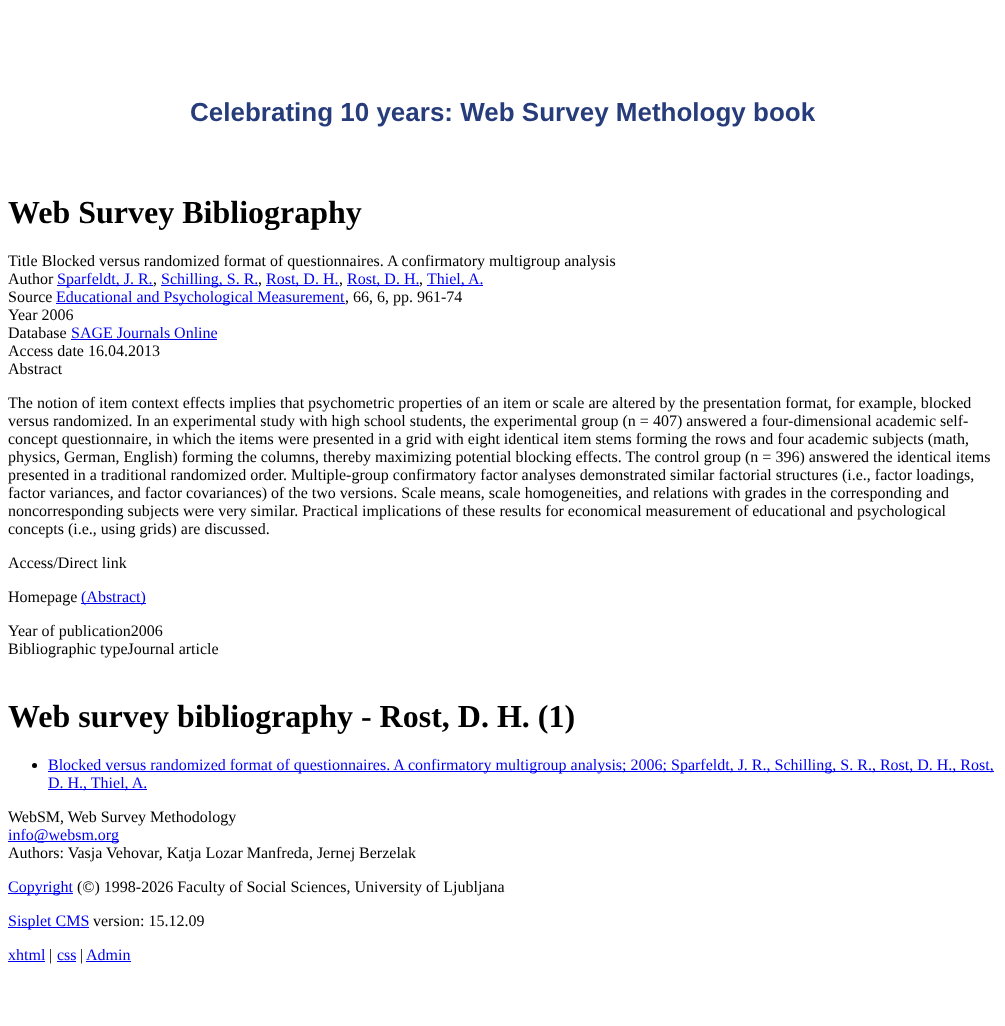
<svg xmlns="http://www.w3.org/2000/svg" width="1005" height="1026">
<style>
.a{font:bold 26px Liberation Sans;fill:#273c7a}
.b{font:bold 32px Liberation Serif;fill:#000}
.c{font:16px Liberation Serif;fill:#000}
.d{font:16px Liberation Serif;fill:#00e}
</style>
<rect width="100%" height="100%" fill="#fff"/>
<path fill="#00e" d="M57 285h96v1H57z"/>
<path fill="#00e" d="M161 285h97v1H161z"/>
<path fill="#00e" d="M266 285h73v1H266z"/>
<path fill="#00e" d="M347 285h72v1H347z"/>
<path fill="#00e" d="M427 285h56v1H427z"/>
<path fill="#00e" d="M56 303h289v1H56z"/>
<path fill="#00e" d="M71 339h146v1H71z"/>
<path fill="#00e" d="M81 603h65v1H81z"/>
<circle fill="#000" cx="34.5" cy="765.5" r="2.5"/>
<path fill="#00e" d="M48 771h946v1H48z"/>
<path fill="#00e" d="M48 789h99v1H48z"/>
<path fill="#00e" d="M8 841h111v1H8z"/>
<path fill="#00e" d="M8 893h65v1H8z"/>
<path fill="#00e" d="M8 927h81v1H8z"/>
<path fill="#00e" d="M8 961h37v1H8z"/>
<path fill="#00e" d="M57 961h19v1H57z"/>
<path fill="#00e" d="M86 961h45v1H86z"/>
<text class="a" x="190" y="121">Celebrating 10 years: Web Survey Methology book</text>
<text class="b" x="8" y="223">Web Survey Bibliography</text>
<text class="c" x="8" y="266">Title Blocked versus randomized format of questionnaires. A confirmatory multigroup analysis</text>
<text class="c" x="8" y="284">Author</text>
<text class="d" x="57" y="284">Sparfeldt, J. R.</text>
<text class="c" x="153" y="284">,</text>
<text class="d" x="161" y="284">Schilling, S. R.</text>
<text class="c" x="258" y="284">,</text>
<text class="d" x="266" y="284">Rost, D. H.</text>
<text class="c" x="339" y="284">,</text>
<text class="d" x="347" y="284">Rost, D. H.</text>
<text class="c" x="419" y="284">,</text>
<text class="d" x="427" y="284">Thiel, A.</text>
<text class="c" x="8" y="302">Source</text>
<text class="d" x="56" y="302">Educational and Psychological Measurement</text>
<text class="c" x="345" y="302">, 66, 6, pp. 961-74</text>
<text class="c" x="8" y="320">Year 2006</text>
<text class="c" x="8" y="338">Database</text>
<text class="d" x="71" y="338">SAGE Journals Online</text>
<text class="c" x="8" y="356">Access date 16.04.2013</text>
<text class="c" x="8" y="374">Abstract</text>
<text class="c" x="8" y="408">The notion of item context effects implies that psychometric properties of an item or scale are altered by the presentation format, for example, blocked</text>
<text class="c" x="8" y="426">versus randomized. In an experimental study with high school students, the experimental group (n = 407) answered a four-dimensional academic self-</text>
<text class="c" x="8" y="444">concept questionnaire, in which the items were presented in a grid with eight identical item stems forming the rows and four academic subjects (math,</text>
<text class="c" x="8" y="462">physics, German, English) forming the columns, thereby maximizing potential blocking effects. The control group (n = 396) answered the identical items</text>
<text class="c" x="8" y="480">presented in a traditional randomized order. Multiple-group confirmatory factor analyses demonstrated similar factorial structures (i.e., factor loadings,</text>
<text class="c" x="8" y="498">factor variances, and factor covariances) of the two versions. Scale means, scale homogeneities, and relations with grades in the corresponding and</text>
<text class="c" x="8" y="516">noncorresponding subjects were very similar. Practical implications of these results for economical measurement of educational and psychological</text>
<text class="c" x="8" y="534">concepts (i.e., using grids) are discussed.</text>
<text class="c" x="8" y="568">Access/Direct link</text>
<text class="c" x="8" y="602">Homepage</text>
<text class="d" x="81" y="602">(Abstract)</text>
<text class="c" x="8" y="636">Year of publication2006</text>
<text class="c" x="8" y="654">Bibliographic typeJournal article</text>
<text class="b" x="8" y="727">Web survey bibliography - Rost, D. H. (1)</text>
<text class="d" x="48" y="770">Blocked versus randomized format of questionnaires. A confirmatory multigroup analysis; 2006; Sparfeldt, J. R., Schilling, S. R., Rost, D. H., Rost,</text>
<text class="d" x="48" y="788">D. H., Thiel, A.</text>
<text class="c" x="8" y="822">WebSM, Web Survey Methodology</text>
<text class="d" x="8" y="840">info@websm.org</text>
<text class="c" x="8" y="858">Authors: Vasja Vehovar, Katja Lozar Manfreda, Jernej Berzelak</text>
<text class="d" x="8" y="892">Copyright</text>
<text class="c" x="77" y="892">(©) 1998-2026 Faculty of Social Sciences, University of Ljubljana</text>
<text class="d" x="8" y="926">Sisplet CMS</text>
<text class="c" x="93" y="926">version: 15.12.09</text>
<text class="d" x="8" y="960">xhtml</text>
<text class="c" x="49" y="960">|</text>
<text class="d" x="57" y="960">css</text>
<text class="c" x="80" y="960">|</text>
<text class="d" x="86" y="960">Admin</text>
</svg>
